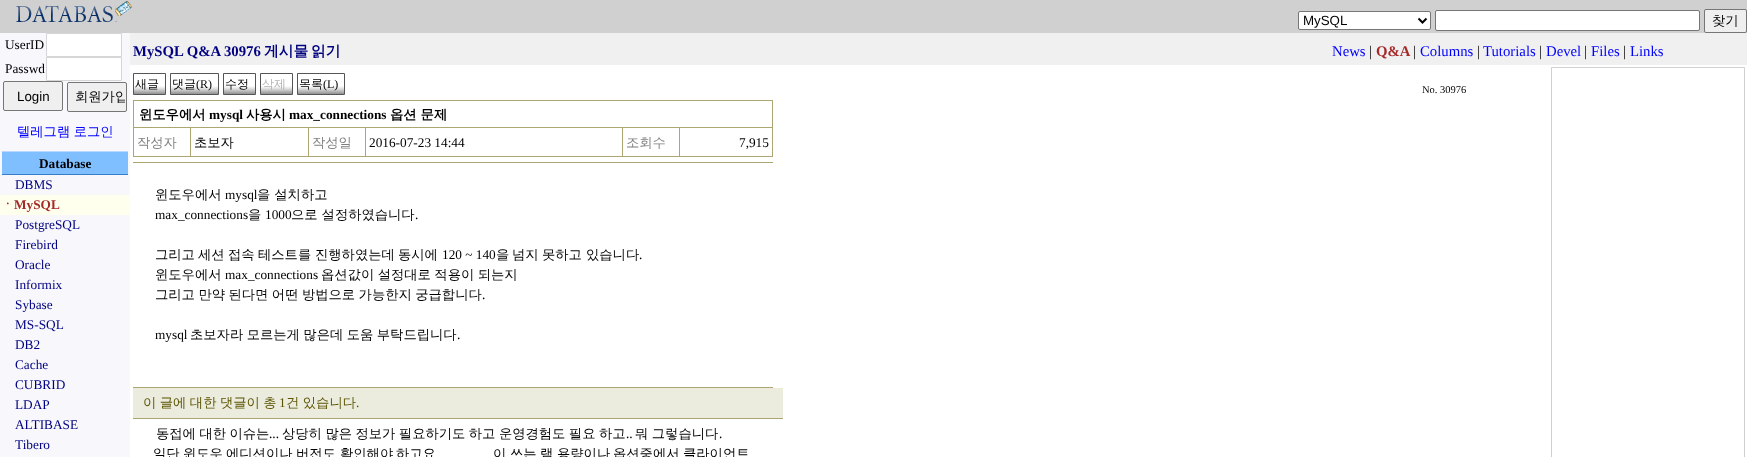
<svg xmlns="http://www.w3.org/2000/svg" width="1747" height="457">
<style>
.a{font:13.3px Liberation Sans;fill:#000}
.b{font:500 13.3px WenQuanYi Zen Hei;fill:#000}
.c{font:13.3px Liberation Serif;fill:#000}
.d{font:500 13.3px WenQuanYi Zen Hei;fill:#00f}
.e{font:bold 13.3px Liberation Serif;fill:#000}
.f{font:13.3px Liberation Serif;fill:#000080}
.g{font:bold 13.3px WenQuanYi Zen Hei;fill:#a52a2a}
.h{font:bold 13.3px Liberation Serif;fill:#a52a2a}
.i{font:bold 14.75px Liberation Serif;fill:#000080}
.j{font:bold 14.75px WenQuanYi Zen Hei;fill:#000080}
.k{font:14.75px Liberation Serif;fill:#00f}
.l{font:14.75px Liberation Serif;fill:#000}
.m{font:bold 14.75px Liberation Serif;fill:#a52a2a}
.n{font:500 12px WenQuanYi Zen Hei;fill:#000}
.o{font:12px Liberation Serif;fill:#000}
.p{font:500 12px WenQuanYi Zen Hei;fill:#b4b4b4}
.q{font:10.5px Liberation Serif;fill:#000}
.r{font:bold 13.3px WenQuanYi Zen Hei;fill:#000}
.s{font:500 13.3px WenQuanYi Zen Hei;fill:#808080}
.t{font:500 13.3px WenQuanYi Zen Hei;fill:#5c5603}
.u{font:13.3px Liberation Serif;fill:#5c5603}
</style>
<defs>
<clipPath id="clip1"><path d="M69 84h56v26H69z"/></clipPath>
</defs>
<rect width="100%" height="100%" fill="#fff"/>
<path fill="#d0d0d0" d="M0 0h1747v33H0z"/>
<image href="1.png" x="16" y="1" width="116" height="22"/>
<rect fill="#fff" stroke="#767676" x="1298.5" y="11.5" width="132" height="18" rx="1.5"/>
<path fill="none" stroke="#000" stroke-width="2" d="M1418.5 18.5l4 4l4-4"/>
<rect fill="#fff" stroke="#767676" x="1435.5" y="10.5" width="264" height="20" rx="1.5"/>
<rect fill="#efefef" stroke="#767676" x="1704.5" y="9.5" width="42" height="23" rx="1.5"/>
<path fill="#f7f7fc" d="M0 33h130v424H0z"/>
<path fill="#fff" stroke="#d6d6d6" d="M46.5 33.5h75v23H46.5z"/>
<path fill="#fff" stroke="#d6d6d6" d="M46.5 57.5h75v23H46.5z"/>
<rect fill="#efefef" stroke="#767676" x="3.5" y="81.5" width="59" height="29" rx="1.5"/>
<rect fill="#efefef" stroke="#767676" x="67.5" y="82.5" width="59" height="29" rx="1.5"/>
<path fill="#80bfff" d="M2 152h126v22H2z"/>
<path fill="#bbd7fc" d="M2 151h126v1H2z"/>
<path fill="#377dc5" d="M2 174h126v1H2z"/>
<path fill="#ffe" d="M0 195h130v20H0z"/>
<path fill="#f0f0f0" d="M130 33h1617v32H130z"/>
<image href="2.png" x="134" y="74" width="31" height="20"/>
<path fill="none" stroke="#555" d="M133.5 73.5h32v21H133.5z"/>
<image href="3.png" x="171" y="74" width="47" height="20"/>
<path fill="none" stroke="#555" d="M170.5 73.5h48v21H170.5z"/>
<image href="2.png" x="224" y="74" width="31" height="20"/>
<path fill="none" stroke="#555" d="M223.5 73.5h32v21H223.5z"/>
<image href="2.png" x="261" y="74" width="31" height="20"/>
<path fill="none" stroke="#555" d="M260.5 73.5h32v21H260.5z"/>
<image href="4.png" x="298" y="74" width="46" height="20"/>
<path fill="none" stroke="#555" d="M297.5 73.5h47v21H297.5z"/>
<path fill="#aca673" d="M133 100h640v1H133z"/>
<path fill="#aca673" d="M133 100h1v57H133z"/>
<path fill="#aca673" d="M772 101h1v56H772z"/>
<path fill="#aca673" d="M134 127h639v1H134z"/>
<path fill="#aca673" d="M190 128h1v29H190z"/>
<path fill="#aca673" d="M134 156h57v1H134z"/>
<path fill="#aca673" d="M308 128h1v29H308z"/>
<path fill="#aca673" d="M191 156h118v1H191z"/>
<path fill="#aca673" d="M365 128h1v29H365z"/>
<path fill="#aca673" d="M309 156h57v1H309z"/>
<path fill="#aca673" d="M622 128h1v29H622z"/>
<path fill="#aca673" d="M366 156h257v1H366z"/>
<path fill="#aca673" d="M679 128h1v29H679z"/>
<path fill="#aca673" d="M623 156h150v1H623z"/>
<path fill="#aca673" d="M133 162h640v1H133z"/>
<path fill="#aca673" d="M133 387h640v1H133z"/>
<path fill="#ebebde" d="M133 388h650v30H133z"/>
<path fill="#aca673" d="M133 418h650v1H133z"/>
<path fill="none" stroke="#d0d0d0" d="M1551.5 67.5h193v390H1551.5z"/>
<text class="a" x="1303" y="25">MySQL</text>
<text class="b" x="1712" y="25">찾기</text>
<text class="c" x="5" y="49">UserID</text>
<text class="c" x="5" y="73">Passwd</text>
<text class="a" x="17" y="101">Login</text>
<g clip-path="url(#clip1)">
<text class="b" x="75" y="101">회원가입</text>
</g>
<text class="d" x="17" y="136" word-spacing="-0.5">텔레그램 로그인</text>
<text class="e" x="39" y="168">Database</text>
<text class="f" x="15" y="189">DBMS</text>
<text class="g" x="1" y="209">ㆍ</text>
<text class="h" x="14" y="209">MySQL</text>
<text class="f" x="15" y="229">PostgreSQL</text>
<text class="f" x="15" y="249">Firebird</text>
<text class="f" x="15" y="269">Oracle</text>
<text class="f" x="15" y="289">Informix</text>
<text class="f" x="15" y="309">Sybase</text>
<text class="f" x="15" y="329">MS-SQL</text>
<text class="f" x="15" y="349">DB2</text>
<text class="f" x="15" y="369">Cache</text>
<text class="f" x="15" y="389">CUBRID</text>
<text class="f" x="15" y="409">LDAP</text>
<text class="f" x="15" y="429">ALTIBASE</text>
<text class="f" x="15" y="449">Tibero</text>
<text class="i" x="133" y="56">MySQL Q&amp;A 30976</text>
<text class="j" x="264" y="56">게시물</text>
<text class="j" x="311" y="56">읽기</text>
<text class="k" x="1332" y="56">News</text>
<text class="l" x="1369" y="56">|</text>
<text class="m" x="1376" y="56">Q&amp;A</text>
<text class="l" x="1413" y="56">|</text>
<text class="k" x="1420" y="56">Columns</text>
<text class="l" x="1477" y="56">|</text>
<text class="k" x="1483" y="56">Tutorials</text>
<text class="l" x="1539" y="56">|</text>
<text class="k" x="1546" y="56">Devel</text>
<text class="l" x="1584" y="56">|</text>
<text class="k" x="1591" y="56">Files</text>
<text class="l" x="1623" y="56">|</text>
<text class="k" x="1630" y="56">Links</text>
<text class="n" x="135" y="88">새글</text>
<text class="n" x="172" y="88">댓글</text>
<text class="o" x="196" y="88">(R)</text>
<text class="n" x="225" y="88">수정</text>
<text class="p" x="262" y="88">삭제</text>
<text class="n" x="299" y="88">목록</text>
<text class="o" x="323" y="88">(L)</text>
<text class="q" x="1422" y="93">No. 30976</text>
<text class="r" x="139" y="119">윈도우에서</text>
<text class="e" x="209" y="119">mysql</text>
<text class="r" x="246" y="119">사용시</text>
<text class="e" x="289" y="119">max_connections</text>
<text class="r" x="390" y="119">옵션 문제</text>
<text class="s" x="137" y="147">작성자</text>
<text class="b" x="194" y="147">초보자</text>
<text class="s" x="312" y="147">작성일</text>
<text class="c" x="369" y="147">2016-07-23 14:44</text>
<text class="s" x="626" y="147">조회수</text>
<text class="c" x="739" y="147">7,915</text>
<text class="b" x="155" y="199">윈도우에서</text>
<text class="c" x="225" y="199">mysql</text>
<text class="b" x="257" y="199">을 설치하고</text>
<text class="c" x="155" y="219">max_connections</text>
<text class="b" x="248" y="219">을</text>
<text class="c" x="265" y="219">1000</text>
<text class="b" x="291" y="219">으로 설정하였습니다</text>
<text class="c" x="415" y="219">.</text>
<text class="b" x="155" y="259">그리고</text>
<text class="b" x="198" y="259">세션</text>
<text class="b" x="228" y="259">접속</text>
<text class="b" x="258" y="259">테스트를</text>
<text class="b" x="315" y="259">진행하였는데</text>
<text class="b" x="398" y="259">동시에</text>
<text class="c" x="442" y="259">120 ~ 140</text>
<text class="b" x="496" y="259">을</text>
<text class="b" x="512" y="259">넘지</text>
<text class="b" x="542" y="259">못하고</text>
<text class="b" x="586" y="259">있습니다</text>
<text class="c" x="639" y="259">.</text>
<text class="b" x="155" y="279">윈도우에서</text>
<text class="c" x="225" y="279">max_connections</text>
<text class="b" x="321" y="279" word-spacing="-0.5">옵션값이 설정대로 적용이 되는지</text>
<text class="b" x="155" y="299" word-spacing="-0.5">그리고 만약 된다면 어떤 방법으로 가능한지 궁급합니다</text>
<text class="c" x="482" y="299">.</text>
<text class="c" x="155" y="339">mysql</text>
<text class="b" x="190" y="339" word-spacing="-0.5">초보자라 모르는게 많은데 도움 부탁드립니다</text>
<text class="c" x="457" y="339">.</text>
<text class="t" x="143" y="407" word-spacing="-0.5">이 글에 대한 댓글이 총</text>
<text class="u" x="279" y="407">1</text>
<text class="t" x="286" y="407" word-spacing="-0.5">건 있습니다</text>
<text class="u" x="356" y="407">.</text>
<text class="b" x="156" y="438" word-spacing="-0.5">동접에 대한 이슈는</text>
<text class="c" x="269" y="438">...</text>
<text class="b" x="282" y="438" word-spacing="-0.5">상당히 많은 정보가 필요하기도 하고 운영경험도 필요 하고</text>
<text class="c" x="626" y="438">..</text>
<text class="b" x="635" y="438" word-spacing="-0.5">뭐 그렇습니다</text>
<text class="c" x="719" y="438">.</text>
<text class="b" x="153" y="458">일단</text>
<text class="b" x="183" y="458">윈도우</text>
<text class="b" x="226" y="458">에디션이나</text>
<text class="b" x="296" y="458">버전도</text>
<text class="b" x="340" y="458">확인해야</text>
<text class="b" x="396" y="458">하고요</text>
<text class="b" x="493" y="458">이</text>
<text class="b" x="510" y="458">쓰는</text>
<text class="b" x="540" y="458">램</text>
<text class="b" x="557" y="458">용량이나</text>
<text class="b" x="613" y="458">옵션중에서</text>
<text class="b" x="683" y="458">클라이언트</text>
</svg>
